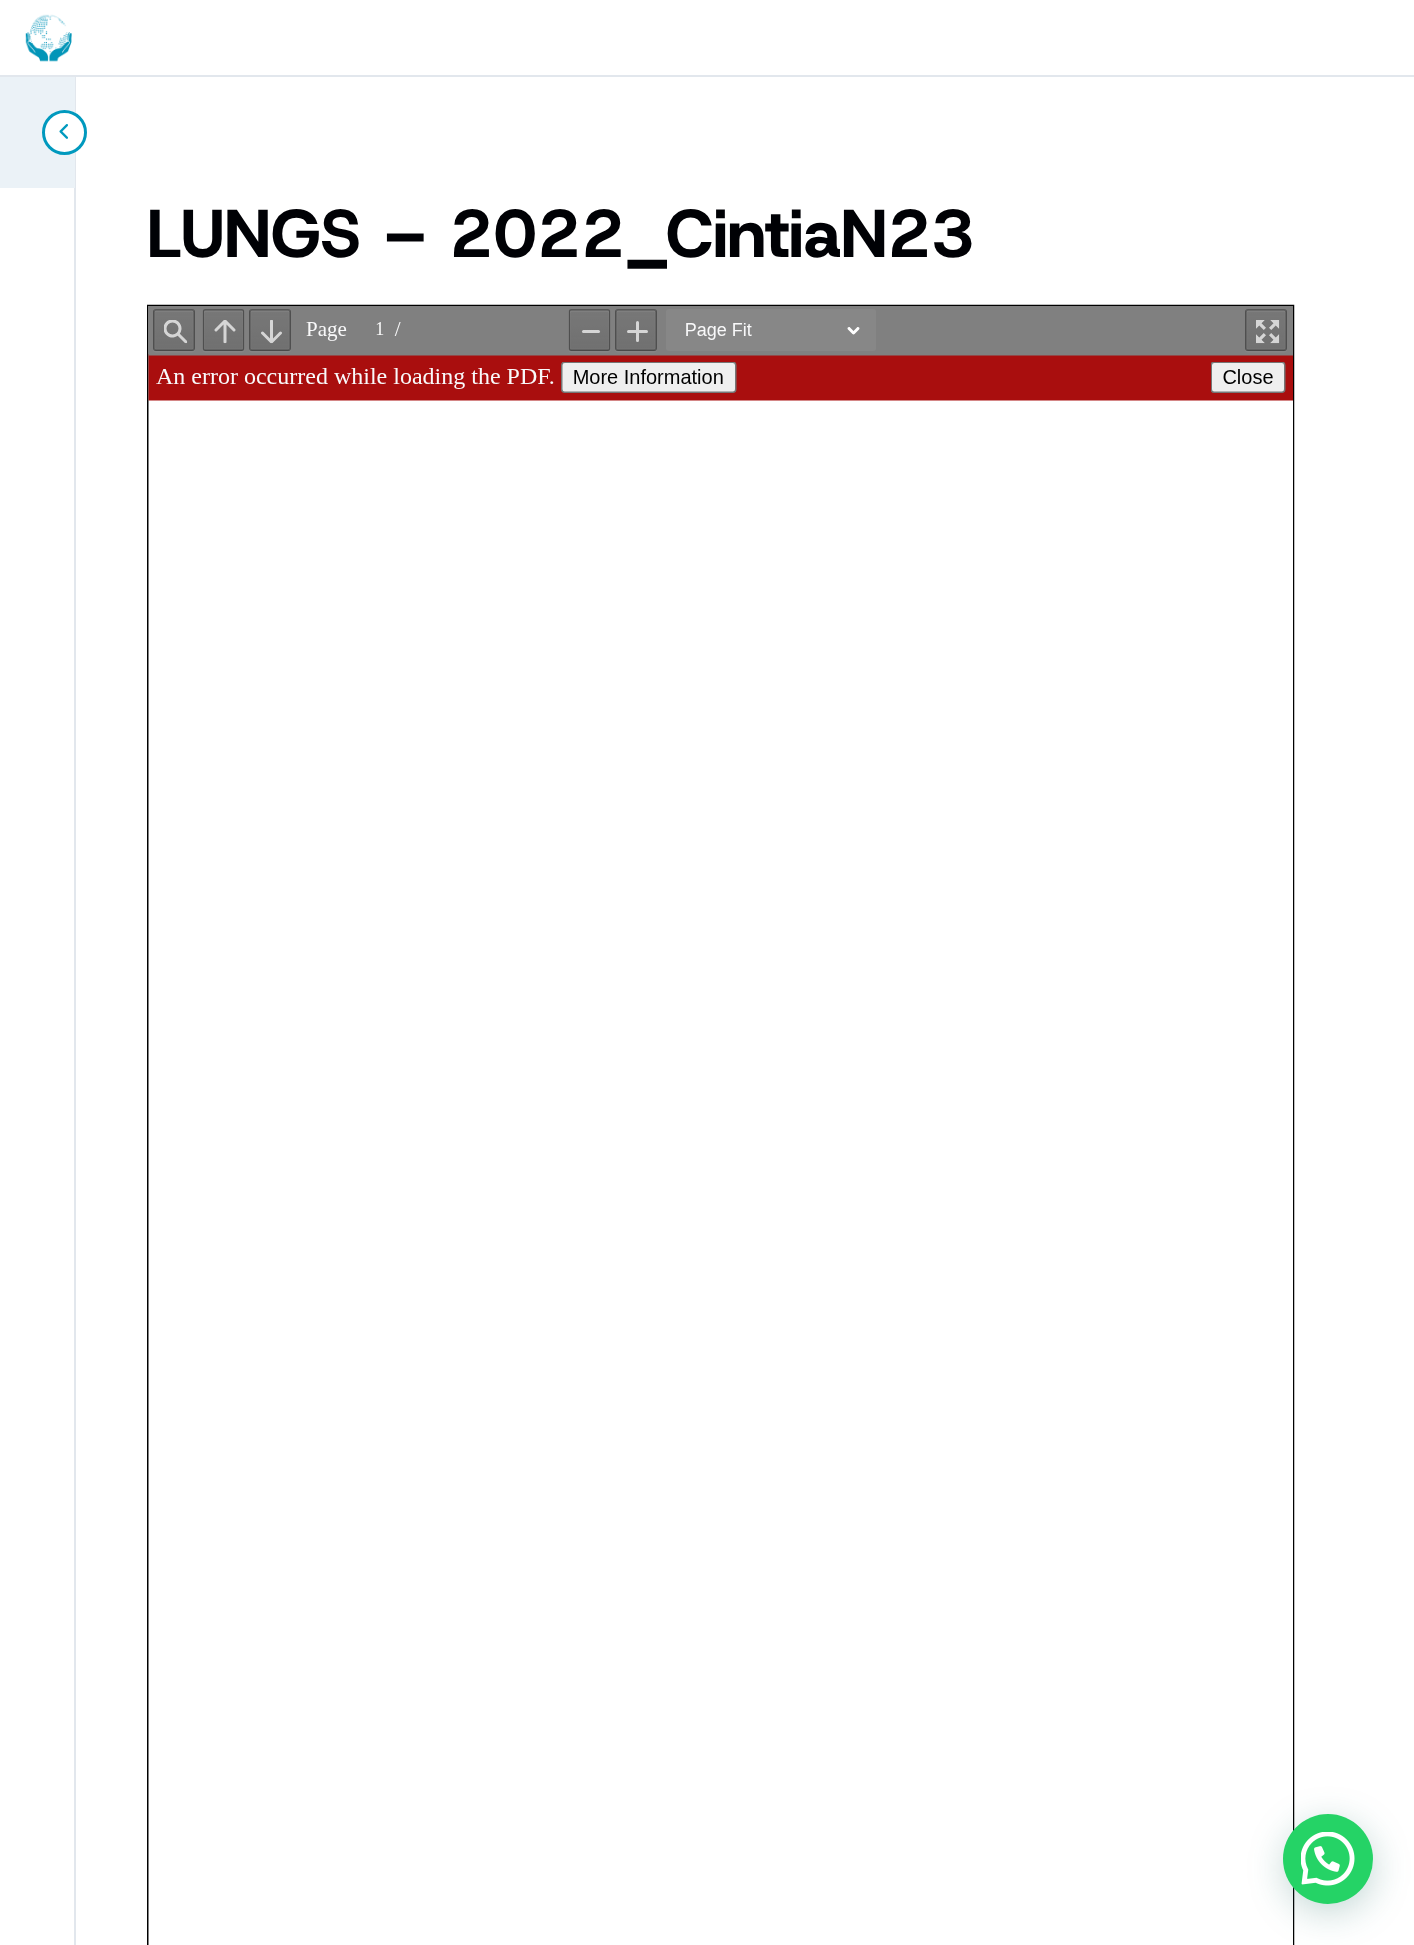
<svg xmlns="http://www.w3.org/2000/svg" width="1414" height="1945">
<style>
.a{font:800 67.5px Host Grotesk;fill:#000105}
</style>
<rect width="100%" height="100%" fill="#fff"/>
<path fill="#e2e7ed" d="M74 77h2v1868H74z"/>
<path fill="#ebf2f7" d="M0 77h75v111H0z"/>
<circle fill="#fff" stroke="#0099be" stroke-width="3" cx="64.5" cy="132.5" r="21"/>
<image href="1.png" x="59" y="124" width="9" height="15"/>
<path fill="#e2e7ed" d="M0 75h1414v2H0z"/>
<image href="2.png" x="25" y="14" width="47" height="48"/>
<image href="3.png" x="147" y="304" width="1148" height="1641"/>
<rect fill="#075e543d" filter="blur(18px)" x="1284" y="1823" width="90" height="90" rx="45"/>
<circle fill="#25d366" cx="1328" cy="1859" r="45"/>
<image href="4.png" x="1301" y="1832" width="54" height="54"/>
<text class="a" x="147" y="257">LUNGS – 2022_CintiaN23</text>
</svg>
